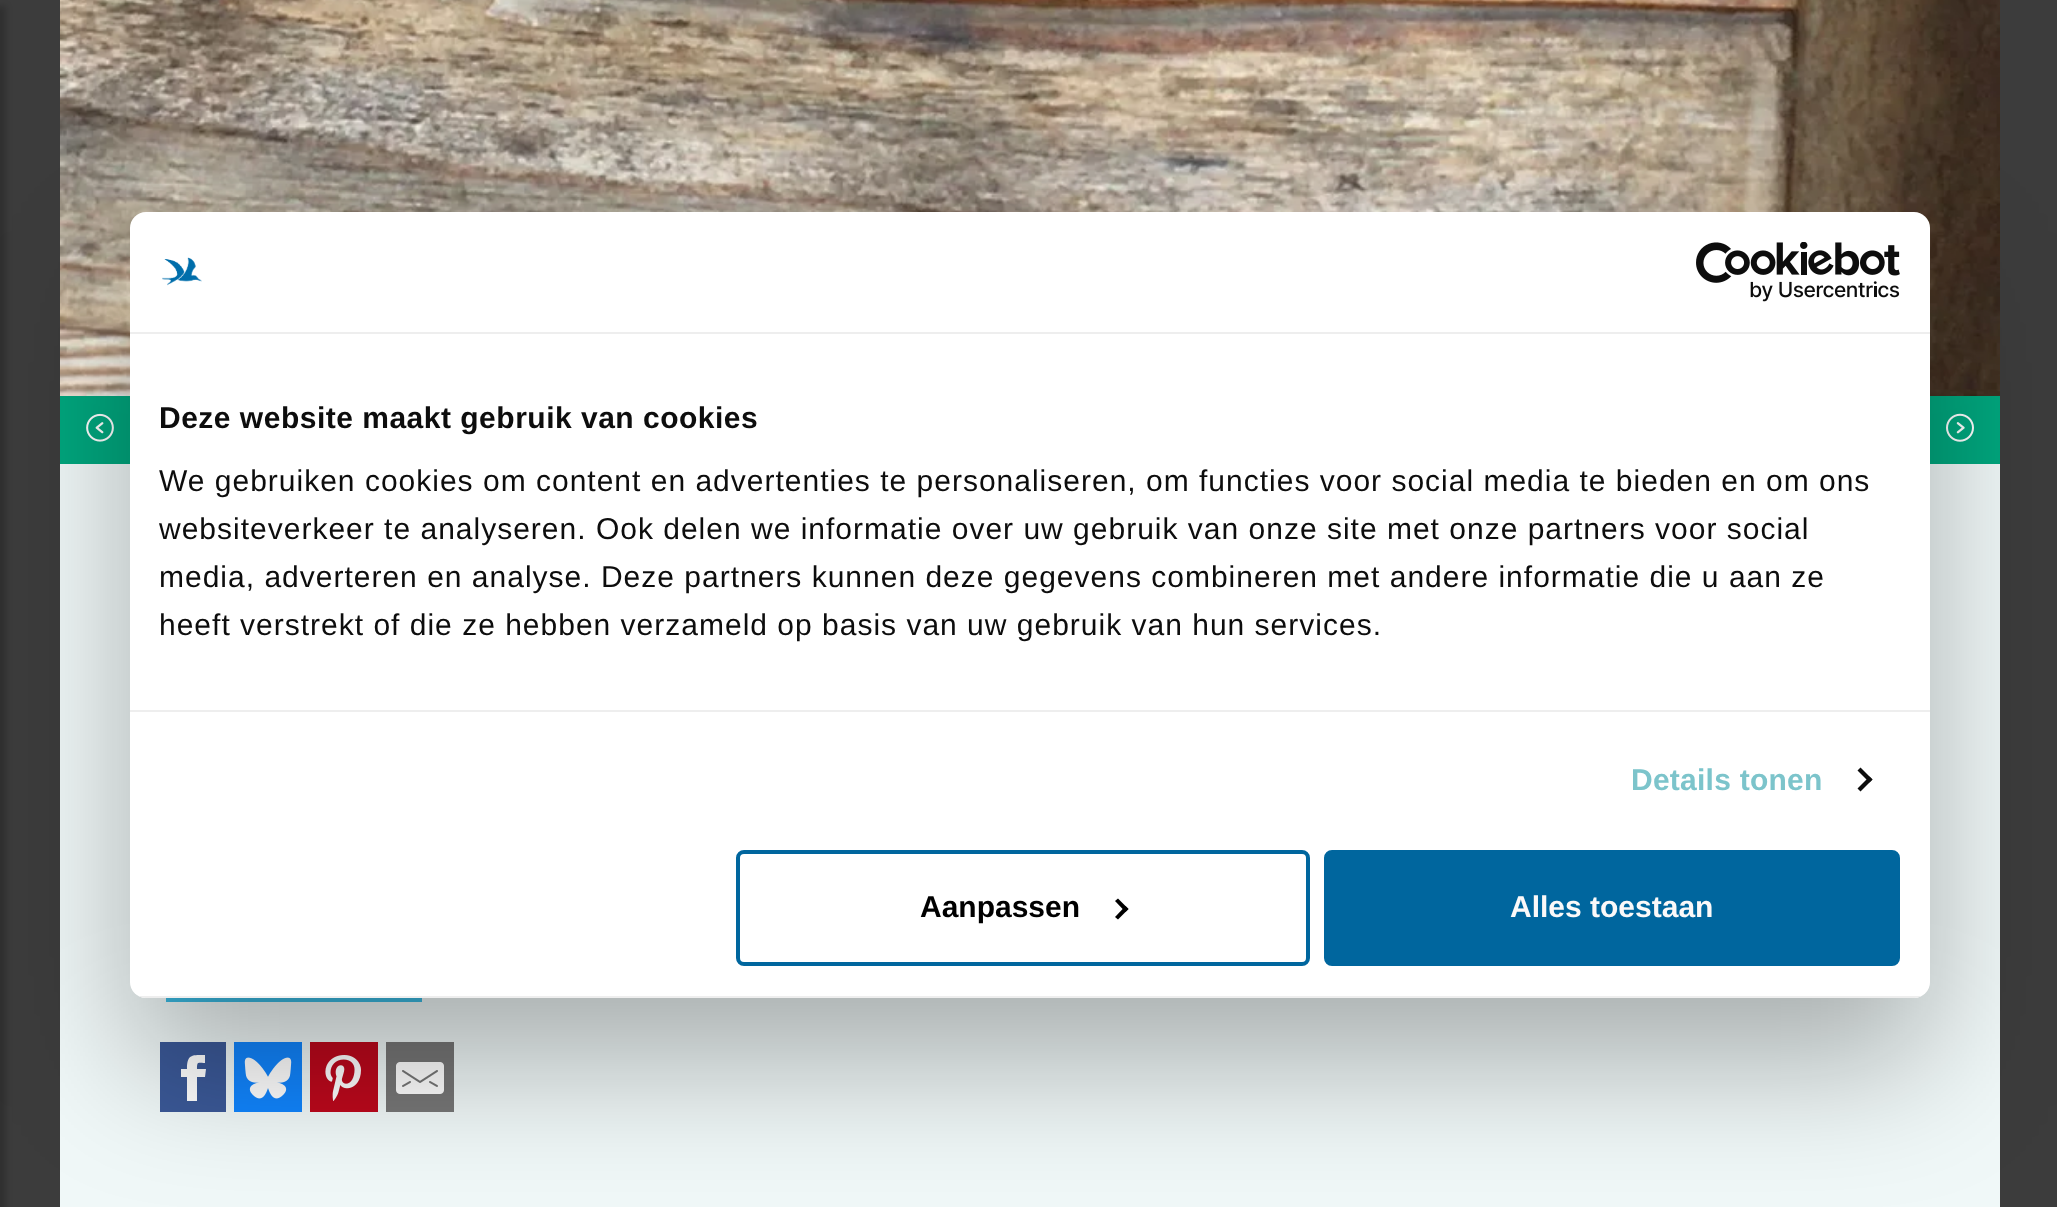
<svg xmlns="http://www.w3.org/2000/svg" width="2057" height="1207">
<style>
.a{font:bold 30px Liberation Sans;letter-spacing:0.5px;fill:#0d0d0d}
.b{font:30px Liberation Sans;letter-spacing:1px;fill:#0d0d0d}
.c{font:bold 30px Liberation Sans;letter-spacing:0.25px;fill:#7cc4cb}
.d{font:bold 30px Liberation Sans;fill:#000}
.e{font:bold 30px Liberation Sans;fill:#fbf9f9}
</style>
<defs>
<clipPath id="clip1"><rect x="130" y="212" width="1800" height="786" rx="16"/></clipPath>
</defs>
<rect width="100%" height="100%" fill="#3c3c3c"/>
<path fill="#00000033" filter="blur(3px)" d="M-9 6h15v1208H-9z"/>
<path fill="#f0f8f8" d="M60 464h1940v743H60z"/>
<image href="1.png" x="60" y="0" width="1940" height="396"/>
<path fill="#00a77e" d="M60 396h70v68H60z"/>
<image href="2.png" x="86" y="413" width="28" height="29"/>
<path fill="#00a77e" d="M1930 396h70v68H1930z"/>
<image href="3.png" x="1946" y="413" width="28" height="29"/>
<path fill="#3bbae2" d="M166 998h256v4H166z"/>
<path fill="#3b5998" d="M160 1042h66v70H160z"/>
<path fill="#fff" d="M206 1069h-9c0-8 1-6 8-6v-8c-13 0-18-1-18 14h-6v8h6v24h10v-24h8z"/>
<path fill="#1185fe" d="M234 1042h68v70H234z"/>
<image href="4.png" x="244" y="1057" width="48" height="42"/>
<path fill="#bd081c" d="M310 1042h68v70H310z"/>
<image href="5.png" x="325" y="1055" width="36" height="46"/>
<path fill="#777" d="M386 1042h68v70H386z"/>
<image href="6.png" x="396" y="1062" width="48" height="32"/>
<rect fill="#0000004d" filter="blur(68px)" x="130" y="276" width="1800" height="786" rx="16"/>
<rect fill="#fff" x="130" y="212" width="1800" height="786" rx="16"/>
<path fill="#eee" d="M130 332h1800v2H130z"/>
<image href="7.png" x="162" y="257" width="40" height="29"/>
<image href="8.png" x="1696" y="242" width="204" height="60"/>
<path fill="#eee" d="M130 710h1800v2H130z"/>
<path fill="#0d0d0d" d="M1860.5 767.5l12 12l-3 3l-12-12z"/>
<path fill="#0d0d0d" d="M1869.5 776.5l3 3l-12 12l-3-3z"/>
<g clip-path="url(#clip1)">
<path fill="#eee" d="M130 996h1800v2H130z"/>
</g>
<rect fill="none" stroke="#00669e" stroke-width="4" x="738" y="852" width="570" height="112" rx="6"/>
<path fill="#000" d="M1118 898.5l10.5 10.5l-3 3l-10.5-11z"/>
<path fill="#000" d="M1125.5 906l3 3l-10.5 10.5l-3-2.5z"/>
<rect fill="#00669e" stroke="#00669e" stroke-width="4" x="1326" y="852" width="572" height="112" rx="6"/>
<text class="a" x="159" y="428">Deze website maakt gebruik van cookies</text>
<text class="b" x="159" y="491">We gebruiken cookies om content en advertenties te personaliseren, om functies voor social media te bieden en om ons</text>
<text class="b" x="159" y="539">websiteverkeer te analyseren. Ook delen we informatie over uw gebruik van onze site met onze partners voor social</text>
<text class="b" x="159" y="587">media, adverteren en analyse. Deze partners kunnen deze gegevens combineren met andere informatie die u aan ze</text>
<text class="b" x="159" y="635">heeft verstrekt of die ze hebben verzameld op basis van uw gebruik van hun services.</text>
<text class="c" x="1631" y="790">Details tonen</text>
<text class="d" x="920" y="917">Aanpassen</text>
<text class="e" x="1510" y="917">Alles toestaan</text>
</svg>
